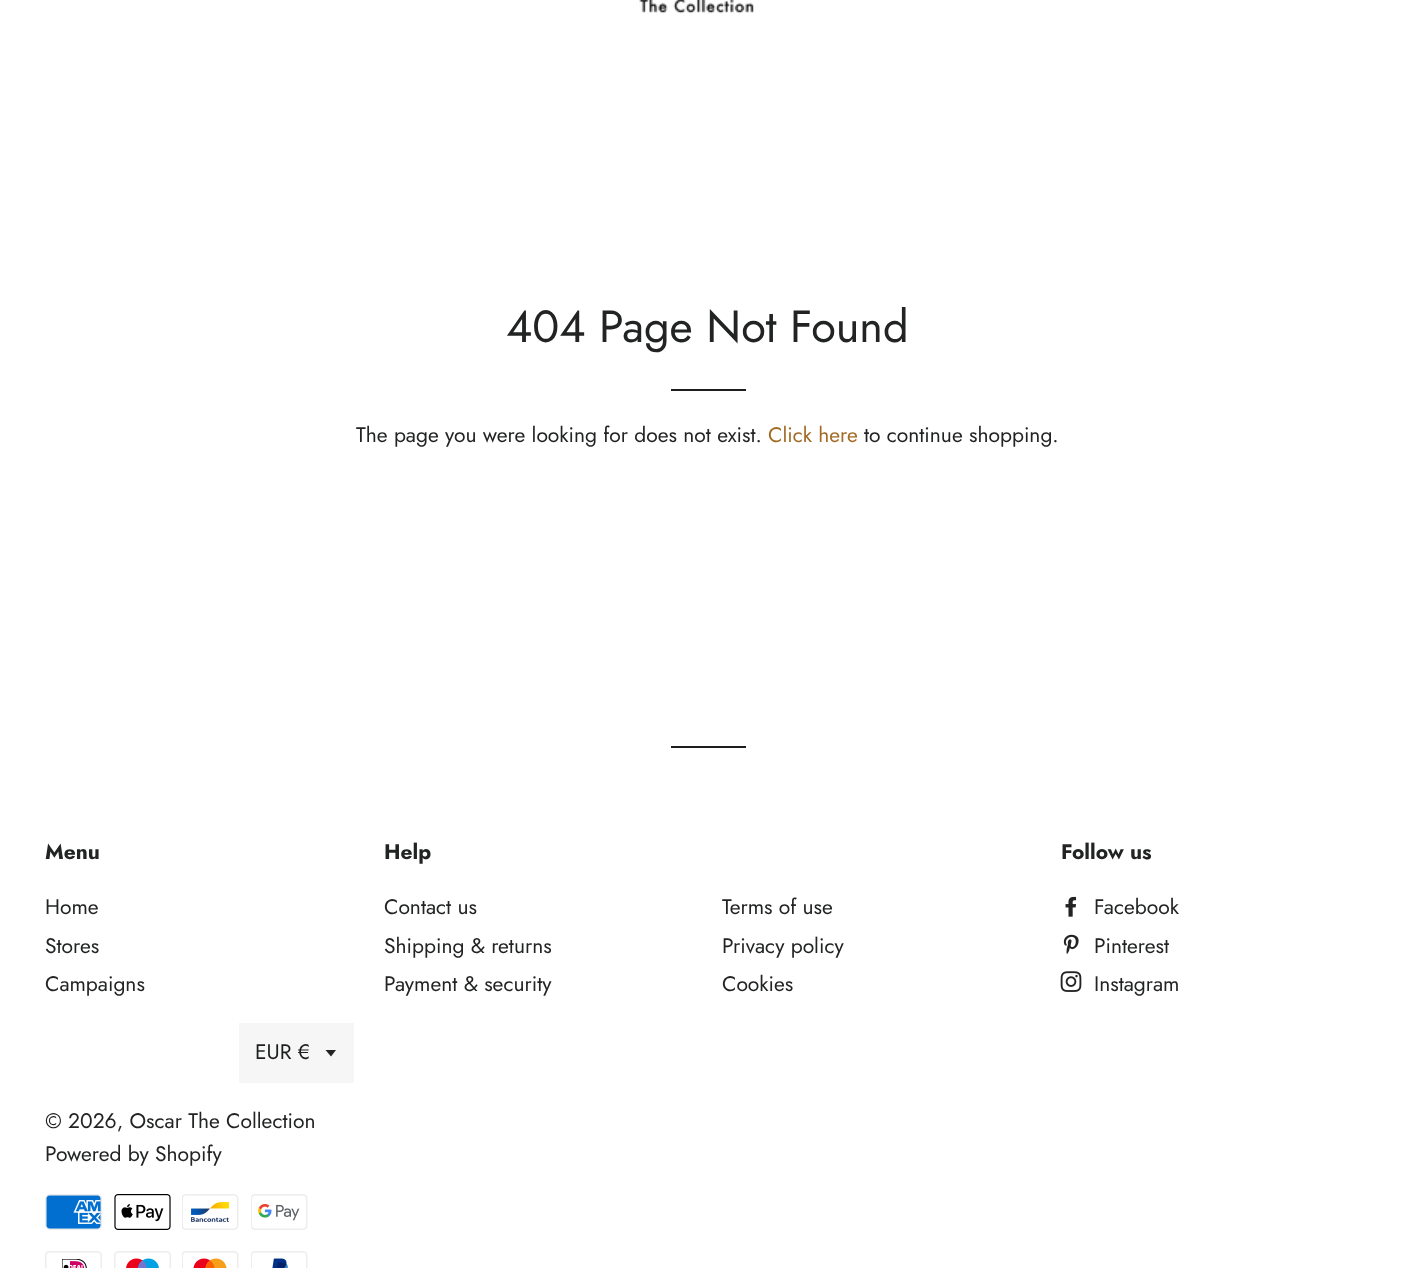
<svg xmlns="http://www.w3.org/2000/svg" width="1414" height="1268">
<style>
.a{font:45px Jost;fill:#222323}
.b{font:21px Jost;fill:#222323}
.c{font:21px Jost;fill:#a26b25}
.d{font:bold 21px Jost;fill:#222323}
.e{font:21px Jost;fill:#1c1d1d}
</style>
<rect width="100%" height="100%" fill="#fff"/>
<image href="1.png" x="639" y="0" width="115" height="14"/>
<path fill="#1c1d1d" d="M671 389h75v2H671z"/>
<path fill="#1c1d1d" d="M671 746h75v2H671z"/>
<image href="2.png" x="1065" y="896" width="12" height="21"/>
<image href="3.png" x="1063" y="934" width="16" height="20"/>
<image href="4.png" x="1060" y="971" width="22" height="21"/>
<path fill="#f6f6f6" d="M239 1023h115v60H239z"/>
<path fill="#222323" d="M325.5 1050l5.5 6.5l5-6.5z"/>
<image href="5.png" x="45" y="1194" width="57" height="36"/>
<image href="6.png" x="114" y="1194" width="57" height="36"/>
<image href="7.png" x="182" y="1194" width="57" height="36"/>
<image href="8.png" x="251" y="1194" width="57" height="36"/>
<image href="9.png" x="45" y="1251" width="57" height="17"/>
<image href="10.png" x="114" y="1251" width="57" height="17"/>
<image href="11.png" x="182" y="1251" width="57" height="17"/>
<image href="12.png" x="251" y="1251" width="57" height="17"/>
<text class="a" x="506" y="342">404 Page Not Found</text>
<text class="b" x="356" y="442">The page you were looking for does not exist.</text>
<text class="c" x="768" y="442">Click here</text>
<text class="b" x="864" y="442">to continue shopping.</text>
<text class="d" x="45" y="859">Menu</text>
<text class="b" x="45" y="914">Home</text>
<text class="b" x="45" y="953">Stores</text>
<text class="b" x="45" y="991">Campaigns</text>
<text class="d" x="384" y="859">Help</text>
<text class="b" x="384" y="914">Contact us</text>
<text class="b" x="384" y="953">Shipping &amp; returns</text>
<text class="b" x="384" y="991">Payment &amp; security</text>
<text class="b" x="722" y="914">Terms of use</text>
<text class="b" x="722" y="953">Privacy policy</text>
<text class="b" x="722" y="991">Cookies</text>
<text class="d" x="1061" y="859">Follow us</text>
<text class="b" x="1094" y="914">Facebook</text>
<text class="b" x="1094" y="953">Pinterest</text>
<text class="b" x="1094" y="991">Instagram</text>
<text class="e" x="255" y="1059">EUR €</text>
<text class="b" x="45" y="1128">© 2026, Oscar The Collection</text>
<text class="b" x="45" y="1161">Powered by Shopify</text>
</svg>
